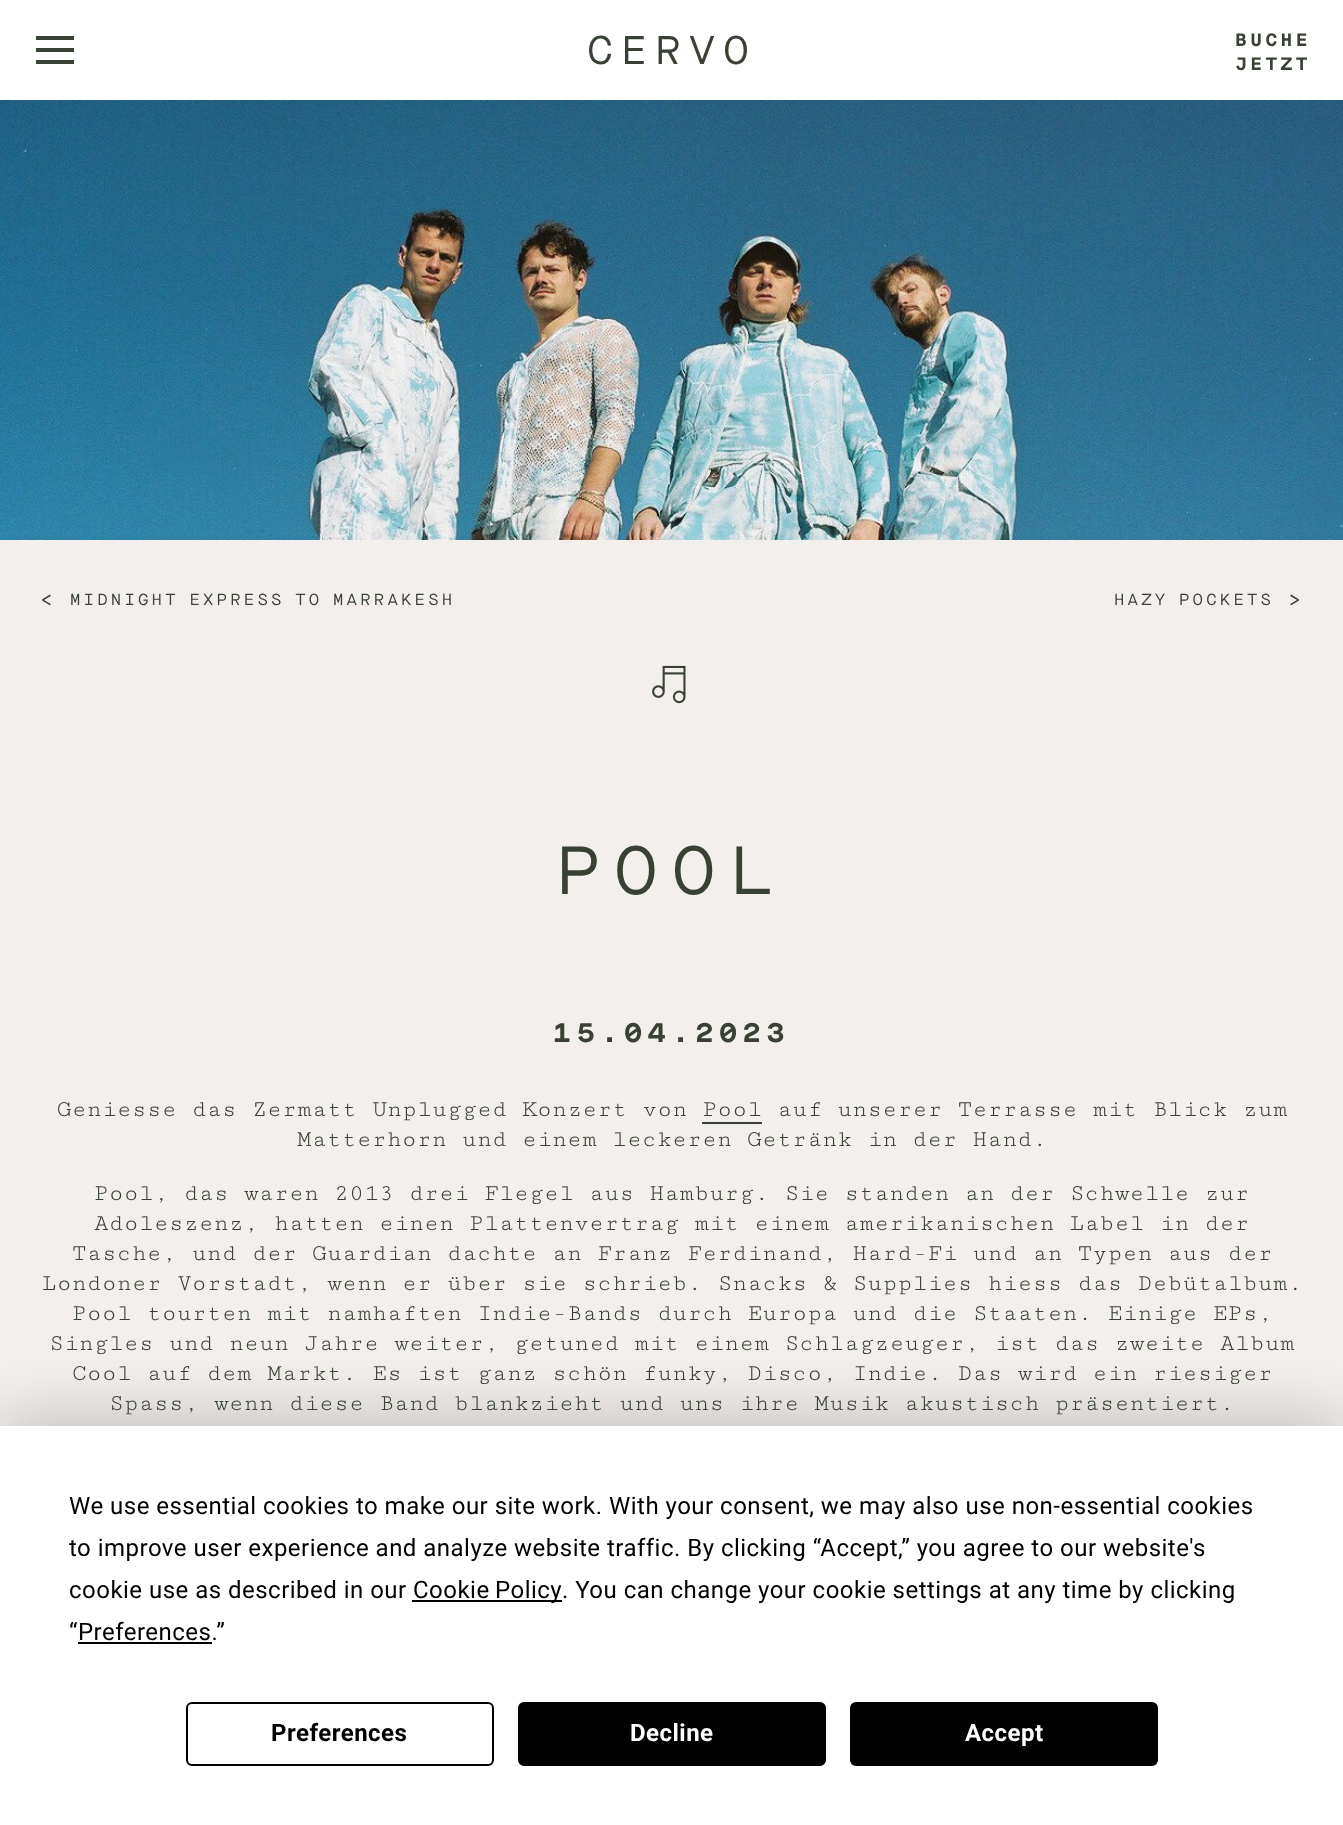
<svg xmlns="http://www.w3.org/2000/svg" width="1343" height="1825">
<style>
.a{font:40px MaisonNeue;letter-spacing:8px;fill:#384133}
.b{font:bold 18px MaisonNeue;letter-spacing:3.5px;fill:#384133}
.c{font:20px MaisonNeue;letter-spacing:3.2px;fill:#384133}
.d{font:16px MaisonNeue;letter-spacing:3.2px;fill:#384133}
.e{font:68px MaisonNeue;letter-spacing:13.5px;fill:#384133}
.f{font:bold 28px MaisonNeue;letter-spacing:5.5px;fill:#384133}
.g{font:24px Cutive Mono;letter-spacing:0.48px;fill:#384133}
.h{font:24px Roboto;letter-spacing:0.48px;fill:#000}
.i{font:bold 24px Roboto;letter-spacing:0.48px;fill:#000}
.j{font:bold 24px Roboto;letter-spacing:0.48px;fill:#fff}
</style>
<rect width="100%" height="100%" fill="#f3efec"/>
<path fill="#fff" d="M0 0h1343v100H0z"/>
<path fill="#384133" d="M36 36h38v4H36z"/>
<path fill="#384133" d="M36 48h38v4H36z"/>
<path fill="#384133" d="M36 60h38v4H36z"/>
<image href="1.png" x="0" y="100" width="1343" height="440"/>
<image href="2.png" x="652" y="665" width="34" height="39"/>
<path fill="#384133" d="M702 1122h60v2H702z"/>
<path fill="#00000040" filter="blur(35px)" d="M0 1426h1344v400H0z"/>
<path fill="#fff" d="M0 1426h1343v399H0z"/>
<path fill="#000" d="M412 1600h150v2H412z"/>
<path fill="#000" d="M78 1642h134v2H78z"/>
<rect fill="none" stroke="#000" stroke-width="2" x="187" y="1703" width="306" height="62" rx="5"/>
<rect fill="#000" stroke="#000" stroke-width="2" x="519" y="1703" width="306" height="62" rx="5"/>
<rect fill="#000" stroke="#000" stroke-width="2" x="851" y="1703" width="306" height="62" rx="5"/>
<text class="a" x="587" y="64">CERVO</text>
<text class="b" x="1235" y="46">BUCHE</text>
<text class="b" x="1235" y="70">JETZT</text>
<text class="c" x="40" y="607">&lt;</text>
<text class="d" x="70" y="605" word-spacing="-3">MIDNIGHT EXPRESS TO MARRAKESH</text>
<text class="d" x="1114" y="605" word-spacing="-3">HAZY POCKETS</text>
<text class="c" x="1288" y="607">&gt;</text>
<text class="e" x="556" y="894">POOL</text>
<text class="f" x="553" y="1042">15.04.2023</text>
<text class="g" x="57" y="1116">Geniesse das Zermatt Unplugged Konzert von Pool auf unserer Terrasse mit Blick zum</text>
<text class="g" x="297" y="1146">Matterhorn und einem leckeren Getränk in der Hand.</text>
<text class="g" x="94" y="1200">Pool, das waren 2013 drei Flegel aus Hamburg. Sie standen an der Schwelle zur</text>
<text class="g" x="94" y="1230">Adoleszenz, hatten einen Plattenvertrag mit einem amerikanischen Label in der</text>
<text class="g" x="72" y="1260">Tasche, und der Guardian dachte an Franz Ferdinand, Hard-Fi und an Typen aus der</text>
<text class="g" x="42" y="1290">Londoner Vorstadt, wenn er über sie schrieb. Snacks &amp; Supplies hiess das Debütalbum.</text>
<text class="g" x="72" y="1320">Pool tourten mit namhaften Indie-Bands durch Europa und die Staaten. Einige EPs,</text>
<text class="g" x="49" y="1350">Singles und neun Jahre weiter, getuned mit einem Schlagzeuger, ist das zweite Album</text>
<text class="g" x="72" y="1380">Cool auf dem Markt. Es ist ganz schön funky, Disco, Indie. Das wird ein riesiger</text>
<text class="g" x="109" y="1410">Spass, wenn diese Band blankzieht und uns ihre Musik akustisch präsentiert.</text>
<text class="h" x="69" y="1514">We use essential cookies to make our site work. With your consent, we may also use non-essential cookies</text>
<text class="h" x="69" y="1556">to improve user experience and analyze website traffic. By clicking “Accept,” you agree to our website's</text>
<text class="h" x="69" y="1598">cookie use as described in our</text>
<text class="h" x="413" y="1598" word-spacing="-1">Cookie Policy</text>
<text class="h" x="562" y="1598">. You can change your cookie settings at any time by clicking</text>
<text class="h" x="69" y="1640">“Preferences.”</text>
<text class="i" x="271" y="1741">Preferences</text>
<text class="j" x="630" y="1741">Decline</text>
<text class="j" x="965" y="1741">Accept</text>
</svg>
